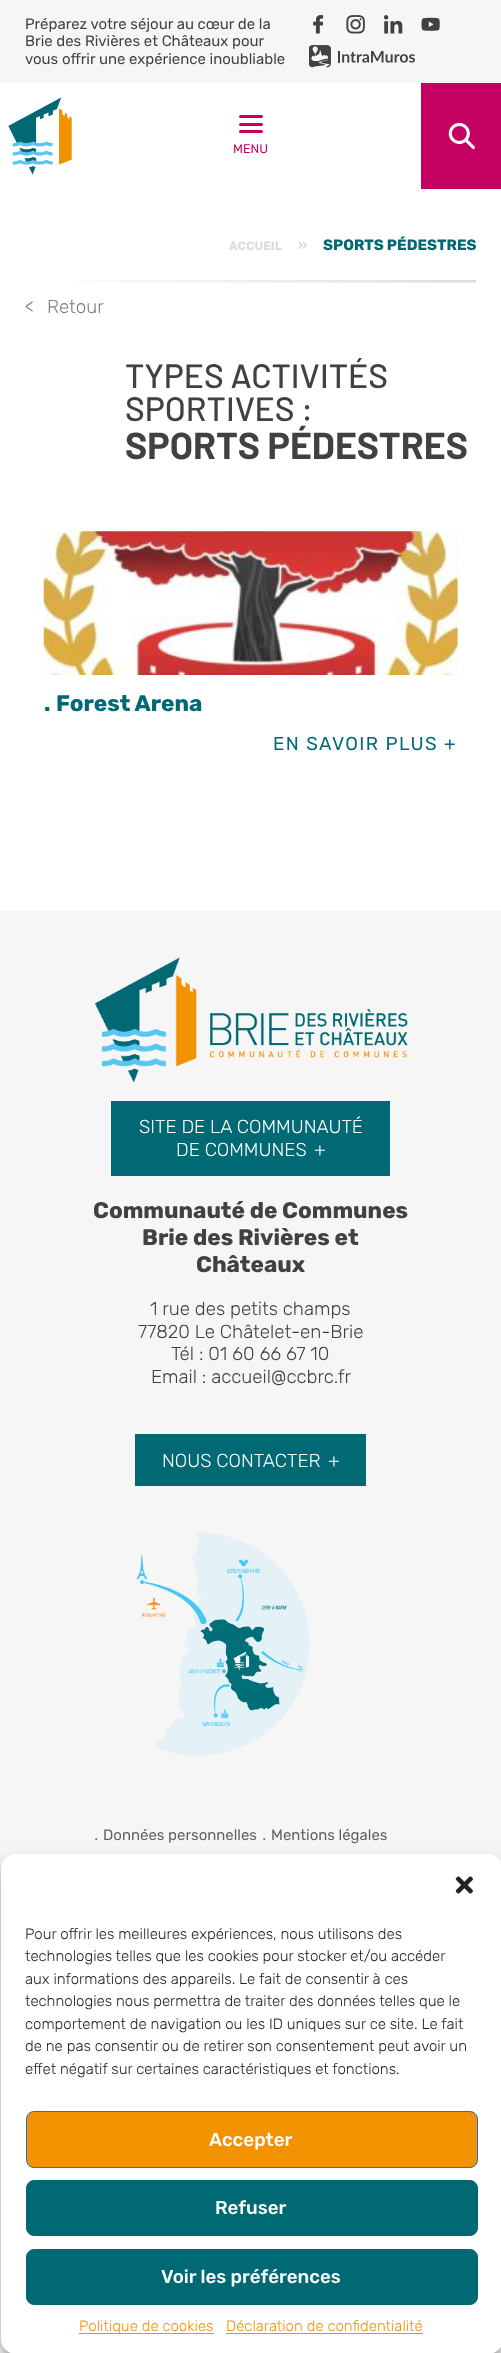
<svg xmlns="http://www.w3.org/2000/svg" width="501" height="2353">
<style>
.a{font:15px Rubik;fill:#414042}
.b{font:12.5px Rubik;fill:#c40062}
.c{font:bold 12px Rubik;fill:#dcdcdc}
.d{font:bold 15px Rubik;fill:#dcdcdc}
.e{font:bold 15px Rubik;fill:#006974}
.f{font:300 18.75px Rubik;fill:#808080}
.g{font:500 33.75px Barlow;fill:#414042}
.h{font:bold 37.5px Barlow;fill:#414042}
.i{font:bold 22.5px Rubik;fill:#006974}
.j{font:18.75px Rubik;letter-spacing:1.4px;fill:#006974}
.k{font:300 18.75px Rubik;fill:#fff}
.l{font:bold 22.5px Rubik;fill:#414042}
.m{font:300 18.75px Rubik;fill:#414042}
.n{font:300 18.75px Rubik;fill:#606060}
.o{font:15px Rubik;fill:#606060}
.p{font:300 15px Rubik;fill:#222}
.q{font:500 18.75px Rubik;fill:#fff}
.r{font:300 15px Rubik;fill:#f39200}
</style>
<rect width="100%" height="100%" fill="#fff"/>
<path fill="#f6f6f6" d="M0 0h501v83H0z"/>
<image href="1.png" x="313" y="15" width="11" height="19"/>
<image href="2.png" x="346" y="15" width="19" height="19"/>
<image href="3.png" x="383" y="15" width="20" height="19"/>
<image href="4.png" x="421" y="17" width="19" height="14"/>
<image href="5.png" x="309" y="45" width="106" height="23"/>
<image href="6.png" x="8" y="97" width="64" height="78"/>
<rect fill="#c40062" x="239" y="123" width="24" height="3" rx="1.5"/>
<rect fill="#c40062" x="239" y="115" width="24" height="3" rx="1.5"/>
<rect fill="#c40062" x="239" y="130" width="24" height="3" rx="1.5"/>
<path fill="#c40062" d="M421 83h80v106H421z"/>
<image href="7.png" x="448" y="122" width="27" height="28"/>
<image href="8.png" x="78" y="280" width="399" height="3"/>
<path fill="#f6f6f6" d="M44 531h414v144H44z"/>
<image href="9.png" x="43" y="531" width="415" height="188"/>
<path fill="#fff" d="M44 675h414v44H44z"/>
<path fill="#f6f6f6" d="M0 911h501v1048H0z"/>
<image href="10.png" x="95" y="957" width="313" height="126"/>
<path fill="#006974" d="M111 1101h279v75H111z"/>
<path fill="#006974" d="M135 1434h231v52H135z"/>
<image href="11.png" x="136" y="1532" width="174" height="224"/>
<rect fill="#0000003b" filter="blur(4px)" x="1" y="1861" width="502" height="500" rx="15"/>
<rect fill="#00000030" filter="blur(12.5px)" x="1" y="1866" width="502" height="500" rx="15"/>
<rect fill="#fff" x="1" y="1854" width="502" height="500" rx="15"/>
<image href="12.png" x="455" y="1876" width="18" height="18"/>
<rect fill="#f39200" stroke="#1e73be" x="26.5" y="2111.5" width="451" height="56" rx="7.5"/>
<rect fill="#006974" stroke="#006974" x="26.5" y="2180.5" width="451" height="55" rx="7.5"/>
<rect fill="#006974" stroke="#006974" x="26.5" y="2249.5" width="451" height="55" rx="7.5"/>
<path fill="#f39200" d="M79 2333h135v1H79z"/>
<path fill="#f39200" d="M226 2333h197v1H226z"/>
<text class="a" x="25" y="29">Préparez votre séjour au cœur de la</text>
<text class="a" x="25" y="46">Brie des Rivières et Châteaux pour</text>
<text class="a" x="25" y="64">vous offrir une expérience inoubliable</text>
<text class="b" x="233" y="153">MENU</text>
<text class="c" x="229" y="250">ACCUEIL</text>
<text class="d" x="298" y="250">»</text>
<text class="e" x="323" y="250">SPORTS PÉDESTRES</text>
<text class="f" x="25" y="313">&lt;</text>
<text class="f" x="47" y="313">Retour</text>
<text class="g" x="125" y="388">TYPES ACTIVITÉS</text>
<text class="g" x="125" y="421">SPORTIVES :</text>
<text class="h" x="125" y="459">SPORTS PÉDESTRES</text>
<text class="i" x="44" y="711">.</text>
<text class="i" x="56" y="711">Forest Arena</text>
<text class="j" x="273" y="750">EN SAVOIR PLUS +</text>
<text class="k" x="139" y="1133">SITE DE LA COMMUNAUTÉ</text>
<text class="k" x="176" y="1156">DE COMMUNES</text>
<text class="k" x="314" y="1156">+</text>
<text class="l" x="93" y="1218">Communauté de Communes</text>
<text class="l" x="142" y="1245">Brie des Rivières et</text>
<text class="l" x="196" y="1272">Châteaux</text>
<text class="m" x="150" y="1315">1 rue des petits champs</text>
<text class="m" x="138" y="1338">77820 Le Châtelet-en-Brie</text>
<text class="m" x="171" y="1360">Tél : 01 60 66 67 10</text>
<text class="m" x="151" y="1383">Email : accueil@ccbrc.fr</text>
<text class="k" x="162" y="1467">NOUS CONTACTER</text>
<text class="k" x="328" y="1467">+</text>
<text class="n" x="94" y="1840">.</text>
<text class="o" x="103" y="1840">Données personnelles</text>
<text class="n" x="262" y="1840">.</text>
<text class="o" x="271" y="1840">Mentions légales</text>
<text class="p" x="25" y="1939">Pour offrir les meilleures expériences, nous utilisons des</text>
<text class="p" x="25" y="1961">technologies telles que les cookies pour stocker et/ou accéder</text>
<text class="p" x="25" y="1984">aux informations des appareils. Le fait de consentir à ces</text>
<text class="p" x="25" y="2006">technologies nous permettra de traiter des données telles que le</text>
<text class="p" x="25" y="2029">comportement de navigation ou les ID uniques sur ce site. Le fait</text>
<text class="p" x="25" y="2051">de ne pas consentir ou de retirer son consentement peut avoir un</text>
<text class="p" x="25" y="2074">effet négatif sur certaines caractéristiques et fonctions.</text>
<text class="q" x="209" y="2146">Accepter</text>
<text class="q" x="215" y="2214">Refuser</text>
<text class="q" x="161" y="2283">Voir les préférences</text>
<text class="r" x="79" y="2331">Politique de cookies</text>
<text class="r" x="226" y="2331">Déclaration de confidentialité</text>
</svg>
